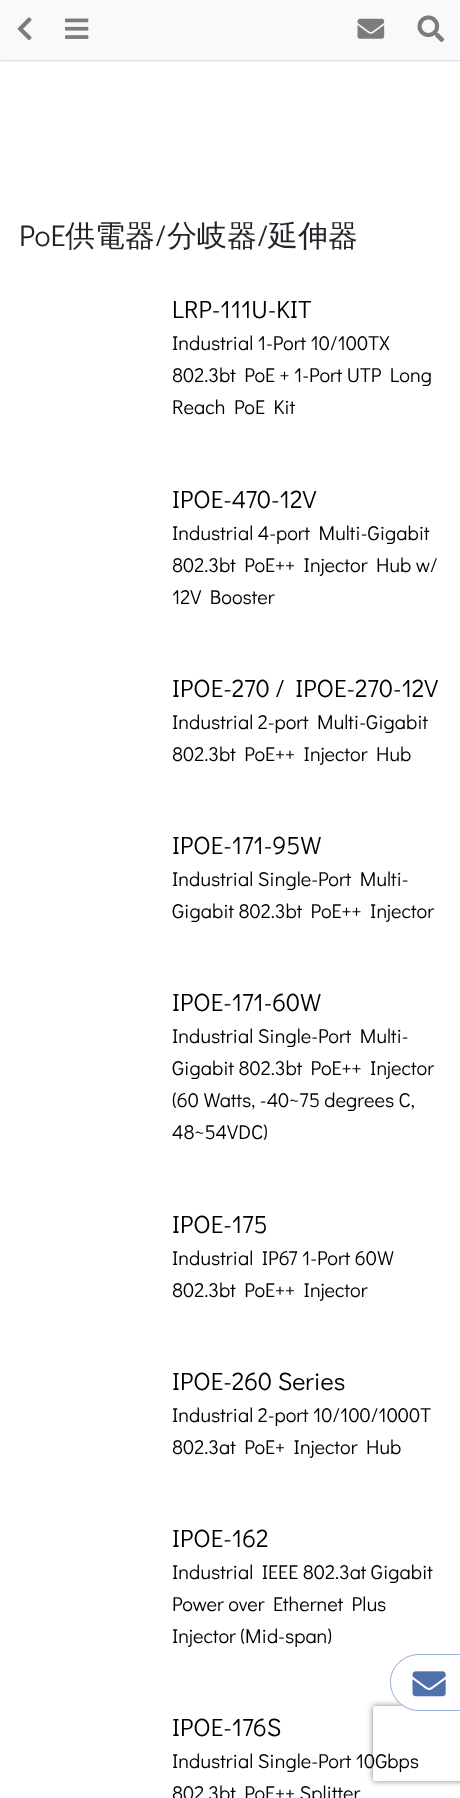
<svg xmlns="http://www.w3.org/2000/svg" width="460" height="1798">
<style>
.a{font:30px Didact Gothic;fill:#212529}
.b{font:500 30px WenQuanYi Zen Hei;fill:#212529}
.c{font:25px Didact Gothic;fill:#000}
.d{font:20px Didact Gothic;fill:#000}
</style>
<defs>
<clipPath id="clip1"><path d="M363 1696h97v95h-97zm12.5 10h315c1.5 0 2.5 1 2.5 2.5v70c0 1.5-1 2.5-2.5 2.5h-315c-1.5 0-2.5-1-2.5-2.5v-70c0-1.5 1-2.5 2.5-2.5z" clip-rule="evenodd"/></clipPath>
</defs>
<rect width="100%" height="100%" fill="#fff"/>
<path fill="#949bac" filter="blur(1px)" d="M0 0h460v60H0z"/>
<path fill="#f8f9fa" d="M0 0h460v60H0z"/>
<image href="1.png" x="17" y="17" width="15" height="23"/>
<image href="2.png" x="65" y="18" width="24" height="21"/>
<image href="3.png" x="357" y="18" width="28" height="21"/>
<image href="4.png" x="417" y="15" width="28" height="27"/>
<g clip-path="url(#clip1)">
<rect fill="#808080" filter="blur(3px)" x="373" y="1706" width="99" height="75" rx="2.5"/>
</g>
<path fill="#fff" d="M418.5 1654h41.5v57h-41.5c-15.5 0-28.5-13-28.5-28.5c0-15.5 13-28.5 28.5-28.5z"/>
<path fill="#99b0dc" fill-rule="evenodd" d="M419 1654h41v57h-41c-16 0-29-13-29-29c0-15 13-28 29-28zm0 1h41v55h-41c-15 0-28-12-28-28c0-15 13-27 28-27z"/>
<image href="5.png" x="412" y="1671" width="34" height="26"/>
<text class="a" x="19" y="246">PoE</text>
<text class="b" x="65" y="246">供電器</text>
<text class="a" x="155" y="246">/</text>
<text class="b" x="167" y="246">分岐器</text>
<text class="a" x="257" y="246">/</text>
<text class="b" x="268" y="246">延伸器</text>
<text class="c" x="172" y="318">LRP-111U-KIT</text>
<text class="d" x="172" y="350">Industrial 1-Port 10/100TX</text>
<text class="d" x="172" y="382">802.3bt PoE + 1-Port UTP Long</text>
<text class="d" x="172" y="414">Reach PoE Kit</text>
<text class="c" x="172" y="508">IPOE-470-12V</text>
<text class="d" x="172" y="540">Industrial 4-port Multi-Gigabit</text>
<text class="d" x="172" y="572">802.3bt PoE++ Injector Hub w/</text>
<text class="d" x="172" y="604">12V Booster</text>
<text class="c" x="172" y="697">IPOE-270 / IPOE-270-12V</text>
<text class="d" x="172" y="729">Industrial 2-port Multi-Gigabit</text>
<text class="d" x="172" y="761">802.3bt PoE++ Injector Hub</text>
<text class="c" x="172" y="854">IPOE-171-95W</text>
<text class="d" x="172" y="886">Industrial Single-Port Multi-</text>
<text class="d" x="172" y="918">Gigabit 802.3bt PoE++ Injector</text>
<text class="c" x="172" y="1011">IPOE-171-60W</text>
<text class="d" x="172" y="1043">Industrial Single-Port Multi-</text>
<text class="d" x="172" y="1075">Gigabit 802.3bt PoE++ Injector</text>
<text class="d" x="172" y="1107">(60 Watts, -40~75 degrees C,</text>
<text class="d" x="172" y="1139">48~54VDC)</text>
<text class="c" x="172" y="1233">IPOE-175</text>
<text class="d" x="172" y="1265">Industrial IP67 1-Port 60W</text>
<text class="d" x="172" y="1297">802.3bt PoE++ Injector</text>
<text class="c" x="172" y="1390">IPOE-260 Series</text>
<text class="d" x="172" y="1422">Industrial 2-port 10/100/1000T</text>
<text class="d" x="172" y="1454">802.3at PoE+ Injector Hub</text>
<text class="c" x="172" y="1547">IPOE-162</text>
<text class="d" x="172" y="1579">Industrial IEEE 802.3at Gigabit</text>
<text class="d" x="172" y="1611">Power over Ethernet Plus</text>
<text class="d" x="172" y="1643">Injector (Mid-span)</text>
<text class="c" x="172" y="1736">IPOE-176S</text>
<text class="d" x="172" y="1768">Industrial Single-Port 10Gbps</text>
<text class="d" x="172" y="1800">802.3bt PoE++ Splitter</text>
</svg>
